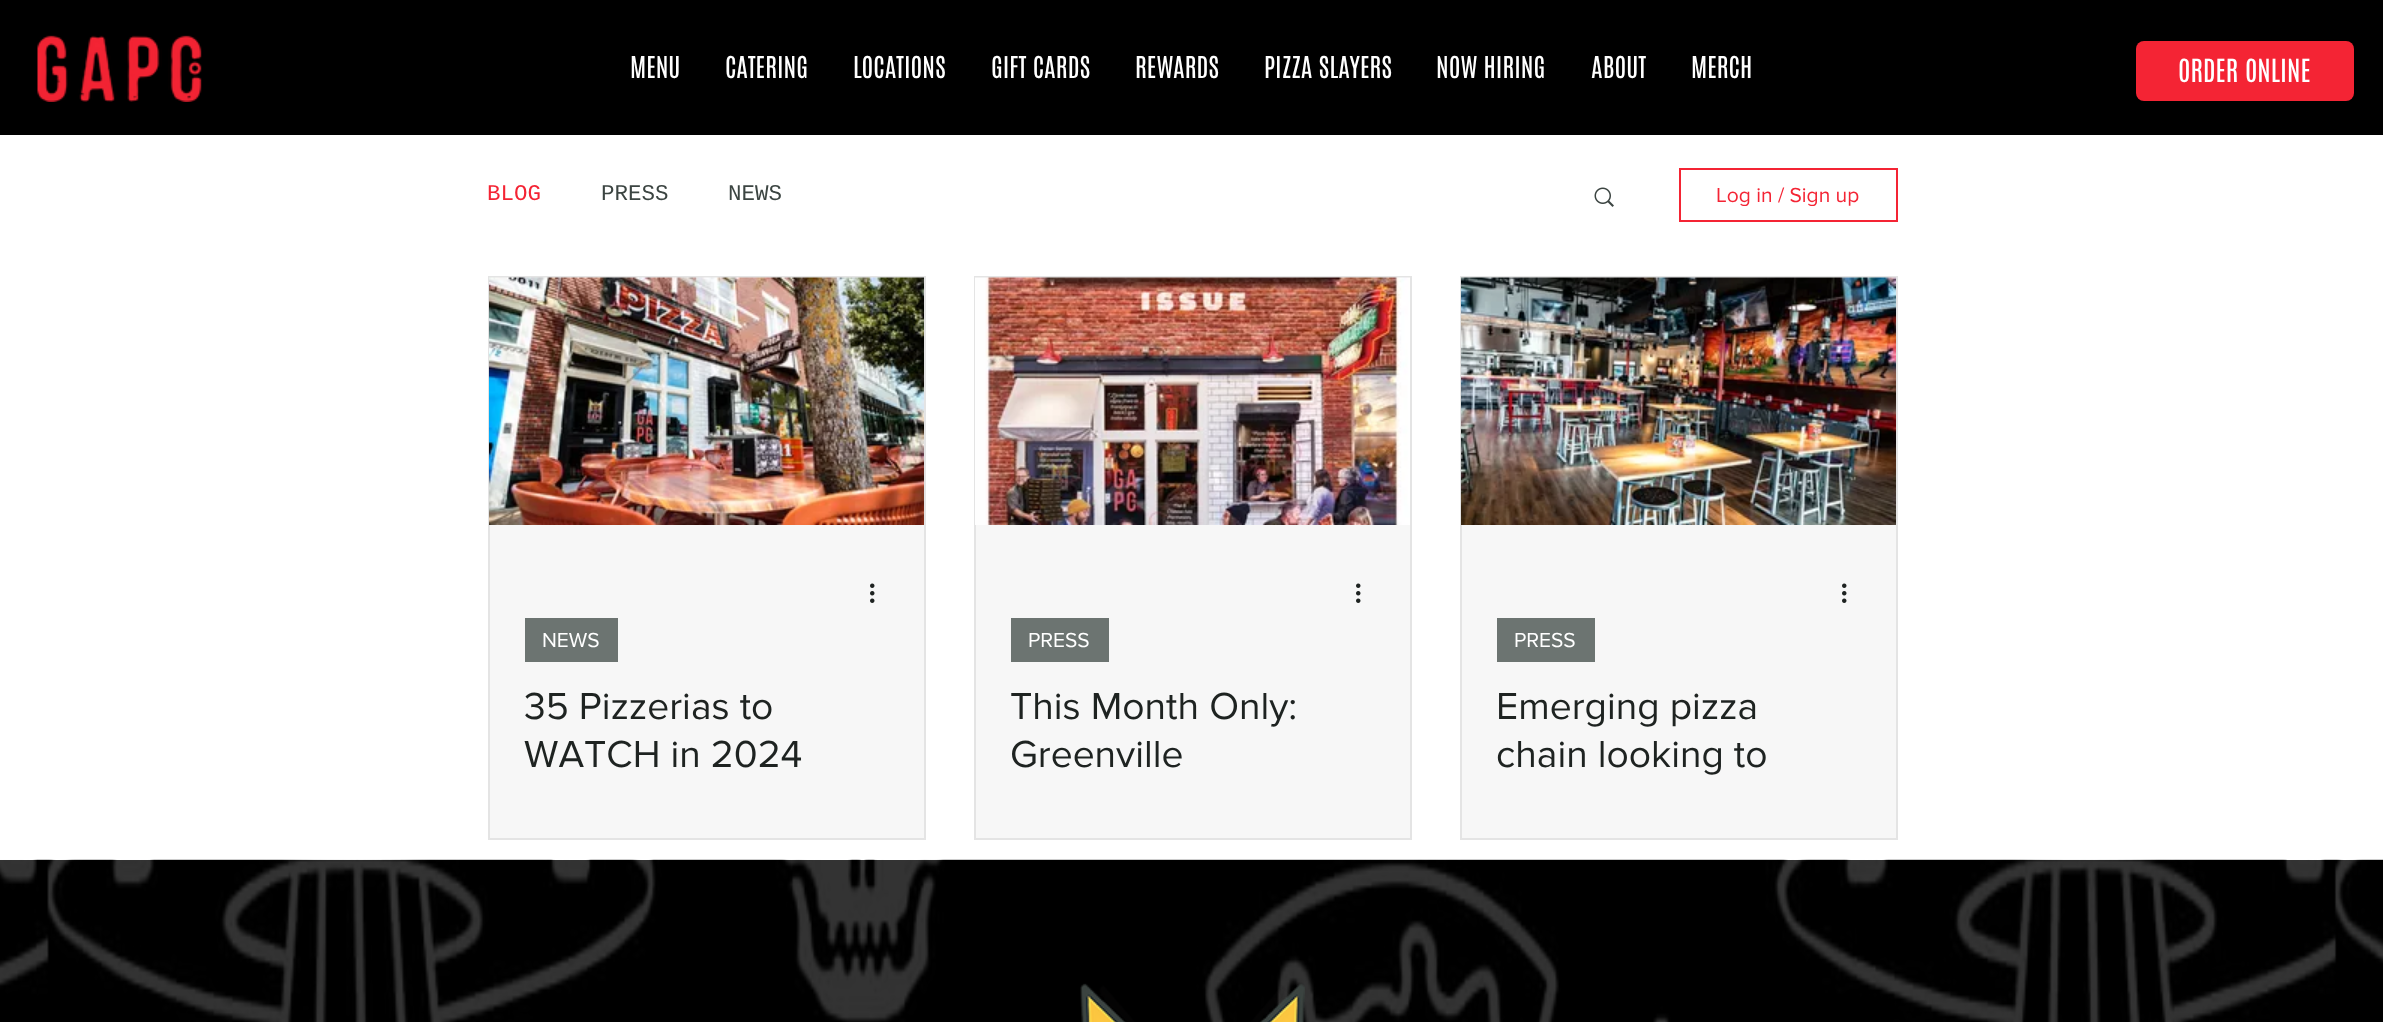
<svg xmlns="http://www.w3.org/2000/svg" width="2383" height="1022">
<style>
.a{font:25.5px Antonio;fill:#fff}
.b{font:27px Antonio;fill:#fff}
.c{font:22.5px Liberation Mono;fill:#f42434}
.d{font:22.5px Liberation Mono;fill:#3c4542}
.e{font:21px 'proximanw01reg';fill:#f42434}
.f{font:21px 'proximanw01reg';fill:#fff}
.g{font:39px 'proximanw01reg';fill:#1e2321}
</style>
<rect width="100%" height="100%" fill="#000"/>
<image href="1.png" x="37" y="35" width="165" height="67"/>
<rect fill="#f42434" x="2136" y="41" width="218" height="60" rx="8"/>
<path fill="#fff" d="M0 135h2383v725H0z"/>
<image href="2.png" x="1594" y="187" width="20" height="20"/>
<path fill="none" stroke="#f42434" stroke-width="2" d="M1680 169h217v52H1680z"/>
<path fill="#f7f7f7" d="M490 525h434v313H490z"/>
<path fill="none" stroke="#e4e4e4" stroke-width="2" d="M489 277h436v562H489z"/>
<image href="3.png" x="489" y="277" width="435" height="248"/>
<image href="4.png" x="870" y="583" width="5" height="20"/>
<path fill="#6c7471" d="M525 618h93v44H525z"/>
<path fill="#f7f7f7" d="M976 525h434v313H976z"/>
<path fill="none" stroke="#e4e4e4" stroke-width="2" d="M975 277h436v562H975z"/>
<image href="5.png" x="975" y="277" width="435" height="248"/>
<image href="4.png" x="1356" y="583" width="5" height="20"/>
<path fill="#6c7471" d="M1011 618h98v44H1011z"/>
<path fill="#f7f7f7" d="M1462 525h434v313H1462z"/>
<path fill="none" stroke="#e4e4e4" stroke-width="2" d="M1461 277h436v562H1461z"/>
<image href="6.png" x="1461" y="277" width="435" height="248"/>
<image href="4.png" x="1842" y="583" width="5" height="20"/>
<path fill="#6c7471" d="M1497 618h98v44H1497z"/>
<image href="7.png" x="0" y="859" width="2383" height="163"/>
<image href="8.png" x="1080" y="983" width="225" height="39"/>
<text class="a" x="630" y="78">MENU</text>
<text class="a" x="725" y="78">CATERING</text>
<text class="a" x="853" y="78">LOCATIONS</text>
<text class="a" x="991" y="78">GIFT CARDS</text>
<text class="a" x="1135" y="78">REWARDS</text>
<text class="a" x="1264" y="78">PIZZA SLAYERS</text>
<text class="a" x="1436" y="78">NOW HIRING</text>
<text class="a" x="1591" y="78">ABOUT</text>
<text class="a" x="1691" y="78">MERCH</text>
<text class="b" x="2178" y="82">ORDER ONLINE</text>
<text class="c" x="487" y="200">BLOG</text>
<text class="d" x="601" y="200">PRESS</text>
<text class="d" x="728" y="200">NEWS</text>
<text class="e" x="1716" y="202">Log in / Sign up</text>
<text class="f" x="542" y="647">NEWS</text>
<text class="g" x="524" y="719">35 Pizzerias to</text>
<text class="g" x="524" y="767">WATCH in 2024</text>
<text class="f" x="1028" y="647">PRESS</text>
<text class="g" x="1010" y="719">This Month Only:</text>
<text class="g" x="1010" y="767">Greenville</text>
<text class="f" x="1514" y="647">PRESS</text>
<text class="g" x="1496" y="719">Emerging pizza</text>
<text class="g" x="1496" y="767">chain looking to</text>
</svg>
